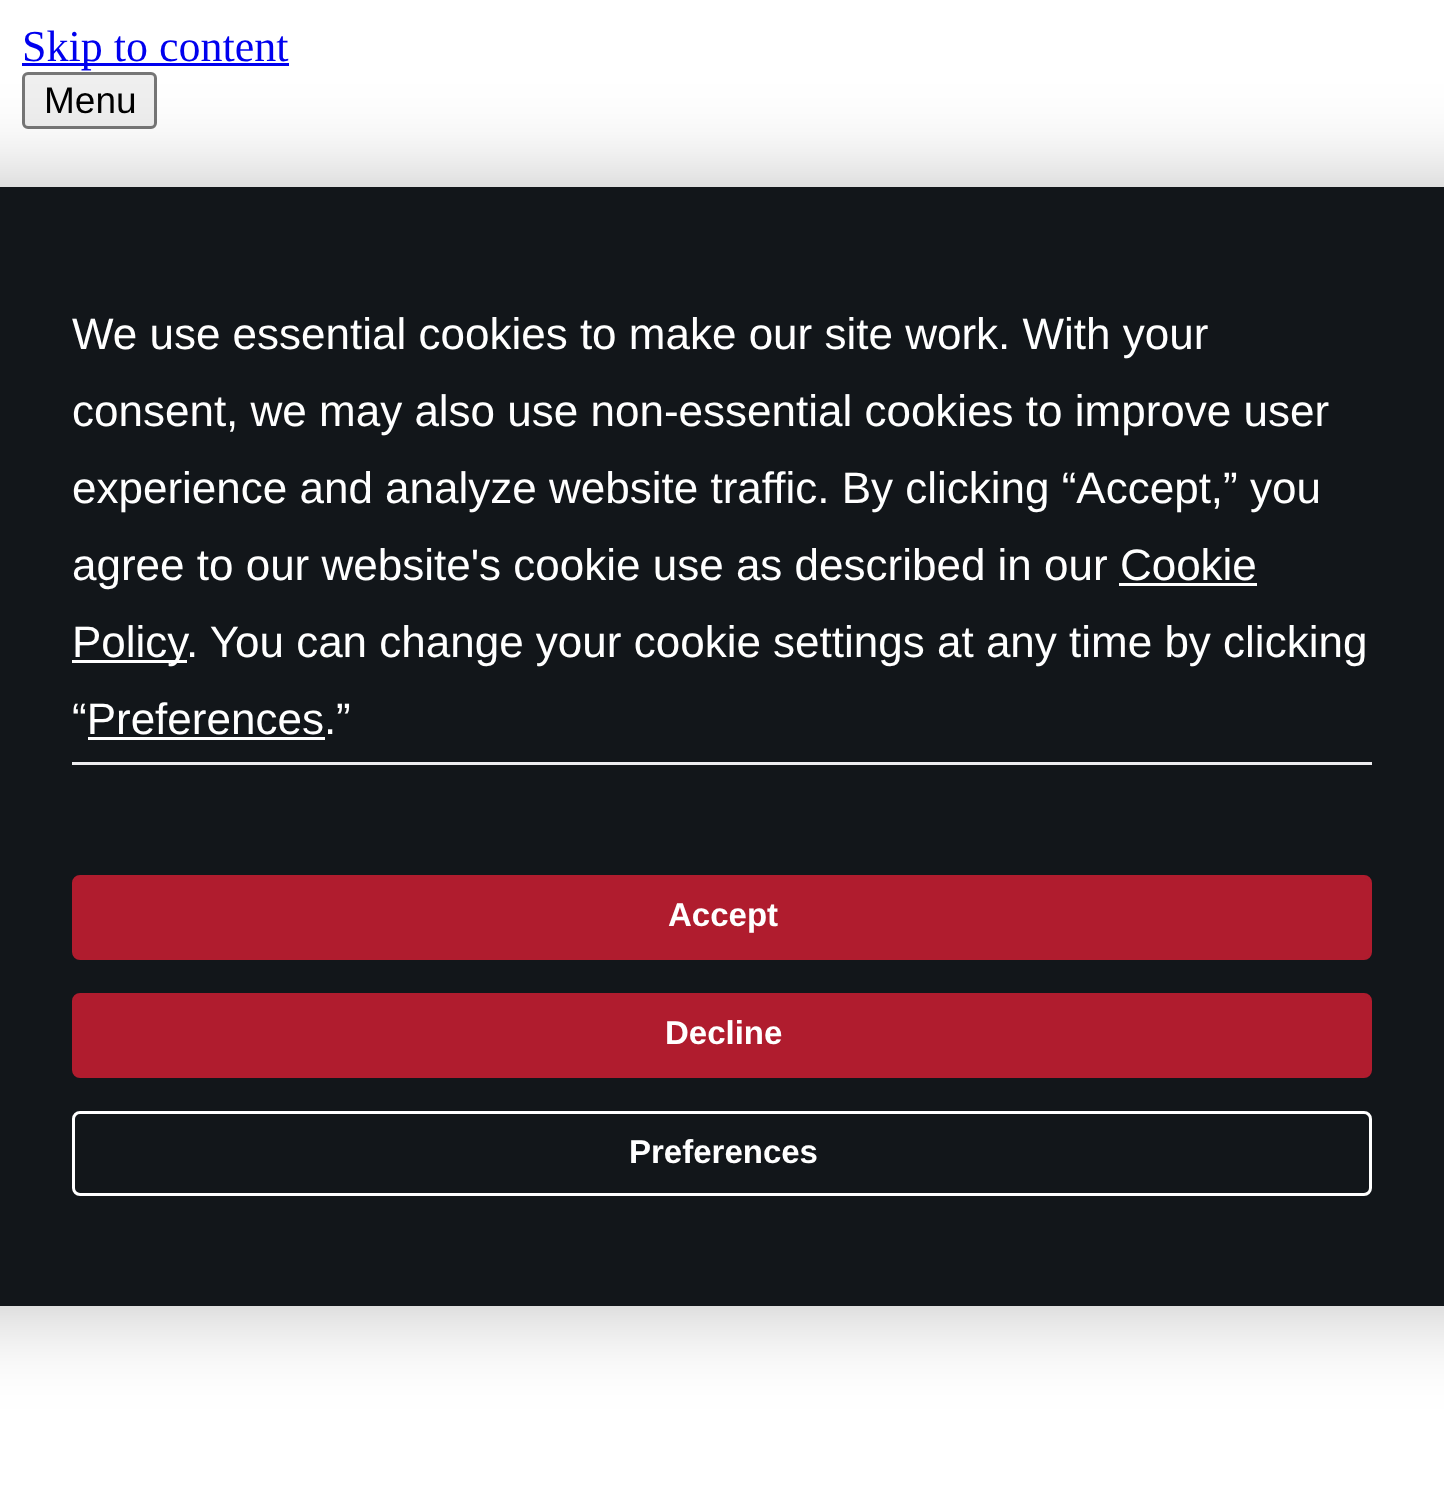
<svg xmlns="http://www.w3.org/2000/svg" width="1444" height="1489">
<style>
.a{font:44px Liberation Serif;fill:#00e}
.b{font:37px Liberation Sans;fill:#000}
.c{font:44px Liberation Sans;fill:#fff}
.d{font:bold 33px Liberation Sans;fill:#fff}
</style>
<rect width="100%" height="100%" fill="#fff"/>
<path fill="#00e" d="M22 63h267v3H22z"/>
<rect fill="#efefef" stroke="#767676" stroke-width="3" x="23.5" y="73.5" width="132" height="54" rx="4.5"/>
<rect fill="#00000040" filter="blur(48px)" x="-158" y="187" width="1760" height="1119" rx="14"/>
<path fill="#12161a" d="M0 187h1444v1119H0z"/>
<path fill="#fff" d="M1119 583h138v3H1119z"/>
<path fill="#fff" d="M72 660h115v3H72z"/>
<path fill="#fff" d="M88 737h237v3H88z"/>
<path fill="#ededef" d="M72 762h1300v3H72z"/>
<rect fill="#b01c2e" stroke="#b01c2e" stroke-width="3" x="73.5" y="876.5" width="1297" height="82" rx="6.5"/>
<rect fill="#b01c2e" stroke="#b01c2e" stroke-width="3" x="73.5" y="994.5" width="1297" height="82" rx="6.5"/>
<rect fill="none" stroke="#fff" stroke-width="3" x="73.5" y="1112.5" width="1297" height="82" rx="6.5"/>
<text class="a" x="22" y="61">Skip to content</text>
<text class="b" x="44" y="113">Menu</text>
<text class="c" x="72" y="349">We use essential cookies to make our site work. With your</text>
<text class="c" x="72" y="426">consent, we may also use non-essential cookies to improve user</text>
<text class="c" x="72" y="503">experience and analyze website traffic. By clicking “Accept,” you</text>
<text class="c" x="72" y="580">agree to our website's cookie use as described in our Cookie</text>
<text class="c" x="72" y="657">Policy</text>
<text class="c" x="186" y="657">. You can change your cookie settings at any time by clicking</text>
<text class="c" x="72" y="734">“Preferences.”</text>
<text class="d" x="668" y="926">Accept</text>
<text class="d" x="665" y="1044">Decline</text>
<text class="d" x="629" y="1163">Preferences</text>
</svg>
